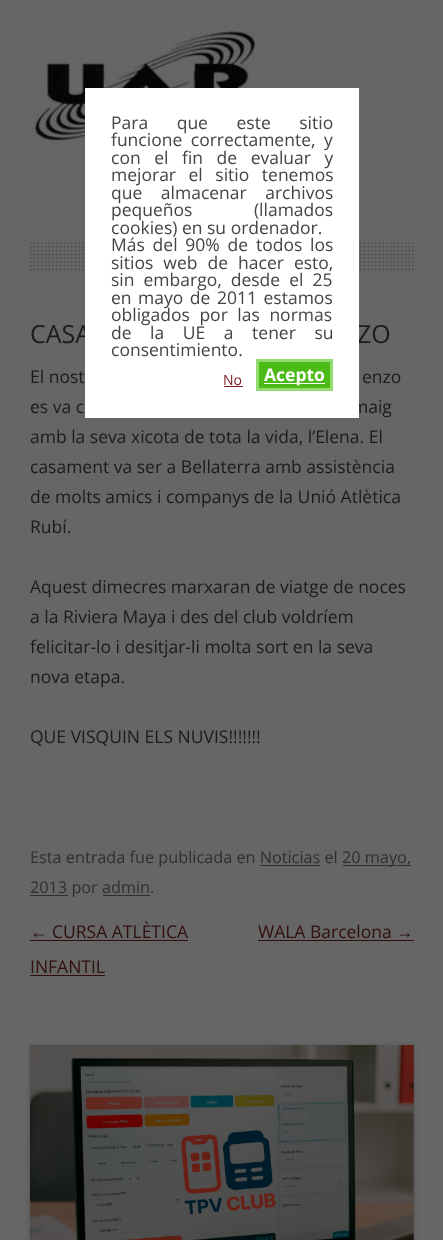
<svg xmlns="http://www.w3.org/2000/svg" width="443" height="1240">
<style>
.a{font:25px Open Sans;fill:#1b1b1b}
.b{font:17.5px Open Sans;fill:#1b1b1b}
.c{font:14px Open Sans;fill:#7a2222}
.d{font:bold 17.5px Open Sans;fill:#fff}
.e{font:17.5px Open Sans;fill:#444}
.f{font:16.25px Open Sans;fill:#2f2f2f}
.g{font:17.5px Liberation Sans;fill:#310e0e}
.h{font:17.5px Open Sans;fill:#310e0e}
</style>
<rect width="100%" height="100%" fill="#666"/>
<image href="1.png" x="30" y="30" width="230" height="111"/>
<image href="2.png" x="30" y="242" width="384" height="29"/>
<path fill="#2f2f2f" d="M343 865h68v1H343z"/>
<path fill="#2f2f2f" d="M260 865h60v1H260z"/>
<path fill="#2f2f2f" d="M30 895h38v1H30z"/>
<path fill="#2f2f2f" d="M103 895h47v1H103z"/>
<path fill="#310e0e" d="M30 940h158v1H30z"/>
<path fill="#310e0e" d="M30 975h75v1H30z"/>
<path fill="#310e0e" d="M258 940h156v1H258z"/>
<path fill="#00000033" filter="blur(2.5px)" d="M30 1046h384v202H30z"/>
<image href="3.png" x="30" y="1045" width="384" height="195"/>
<text class="a" x="30" y="343">CASA</text>
<text class="a" x="357" y="343">ZO</text>
<text class="b" x="30" y="383">El nost</text>
<text class="b" x="362" y="383">enzo</text>
<text class="b" x="30" y="413">es va c</text>
<text class="b" x="352" y="413">maig</text>
<path fill="#fff" d="M85 88h274v330H85z"/>
<text class="c" x="223" y="385">No</text>
<path fill="#7a2222" d="M224 386h19v1H224z"/>
<path fill="#4cbb17" stroke="#93db70" stroke-width="3" d="M257.5 360.5h74v29H257.5z"/>
<path fill="#fff" d="M264 383h61v1H264z"/>
<text class="d" x="264" y="381">Acepto</text>
<text class="e" x="111" y="356">consentimiento.</text>
<text class="e" x="111" y="339" word-spacing="14">de la UE a tener su</text>
<text class="e" x="111" y="321" word-spacing="5">obligados por las normas</text>
<text class="e" x="111" y="304" word-spacing="2">en mayo de 2011 estamos</text>
<text class="e" x="111" y="286" word-spacing="4.5">sin embargo, desde el 25</text>
<text class="e" x="111" y="269" word-spacing="5.5">sitios web de hacer esto,</text>
<text class="e" x="111" y="251" word-spacing="3.25">Más del 90% de todos los</text>
<text class="e" x="111" y="234">cookies) en su ordenador.</text>
<text class="e" x="111" y="216" word-spacing="57">pequeños (llamados</text>
<text class="e" x="111" y="199" word-spacing="14">que almacenar archivos</text>
<text class="e" x="111" y="181" word-spacing="8">mejorar el sitio tenemos</text>
<text class="e" x="111" y="164" word-spacing="9">con el fin de evaluar y</text>
<text class="e" x="111" y="146" word-spacing="4">funcione correctamente, y</text>
<text class="e" x="111" y="129" word-spacing="24">Para que este sitio</text>
<text class="b" x="30" y="443">amb la seva xicota de tota la vida, l’Elena. El</text>
<text class="b" x="30" y="473">casament va ser a Bellaterra amb assistència</text>
<text class="b" x="30" y="503">de molts amics i companys de la Unió Atlètica</text>
<text class="b" x="30" y="533">Rubí.</text>
<text class="b" x="30" y="593">Aquest dimecres marxaran de viatge de noces</text>
<text class="b" x="30" y="623">a la Riviera Maya i des del club voldríem</text>
<text class="b" x="30" y="653">felicitar-lo i desitjar-li molta sort en la seva</text>
<text class="b" x="30" y="683">nova etapa.</text>
<text class="b" x="30" y="743">QUE VISQUIN ELS NUVIS!!!!!!!</text>
<text class="f" x="30" y="863">Esta entrada fue publicada en Noticias el</text>
<text class="f" x="342" y="863">20 mayo,</text>
<text class="f" x="30" y="893">2013 por admin.</text>
<text class="g" x="30" y="938">←</text>
<text class="h" x="52" y="938">CURSA ATLÈTICA</text>
<text class="h" x="30" y="973">INFANTIL</text>
<text class="h" x="258" y="938">WALA Barcelona</text>
<text class="g" x="396" y="938">→</text>
</svg>
